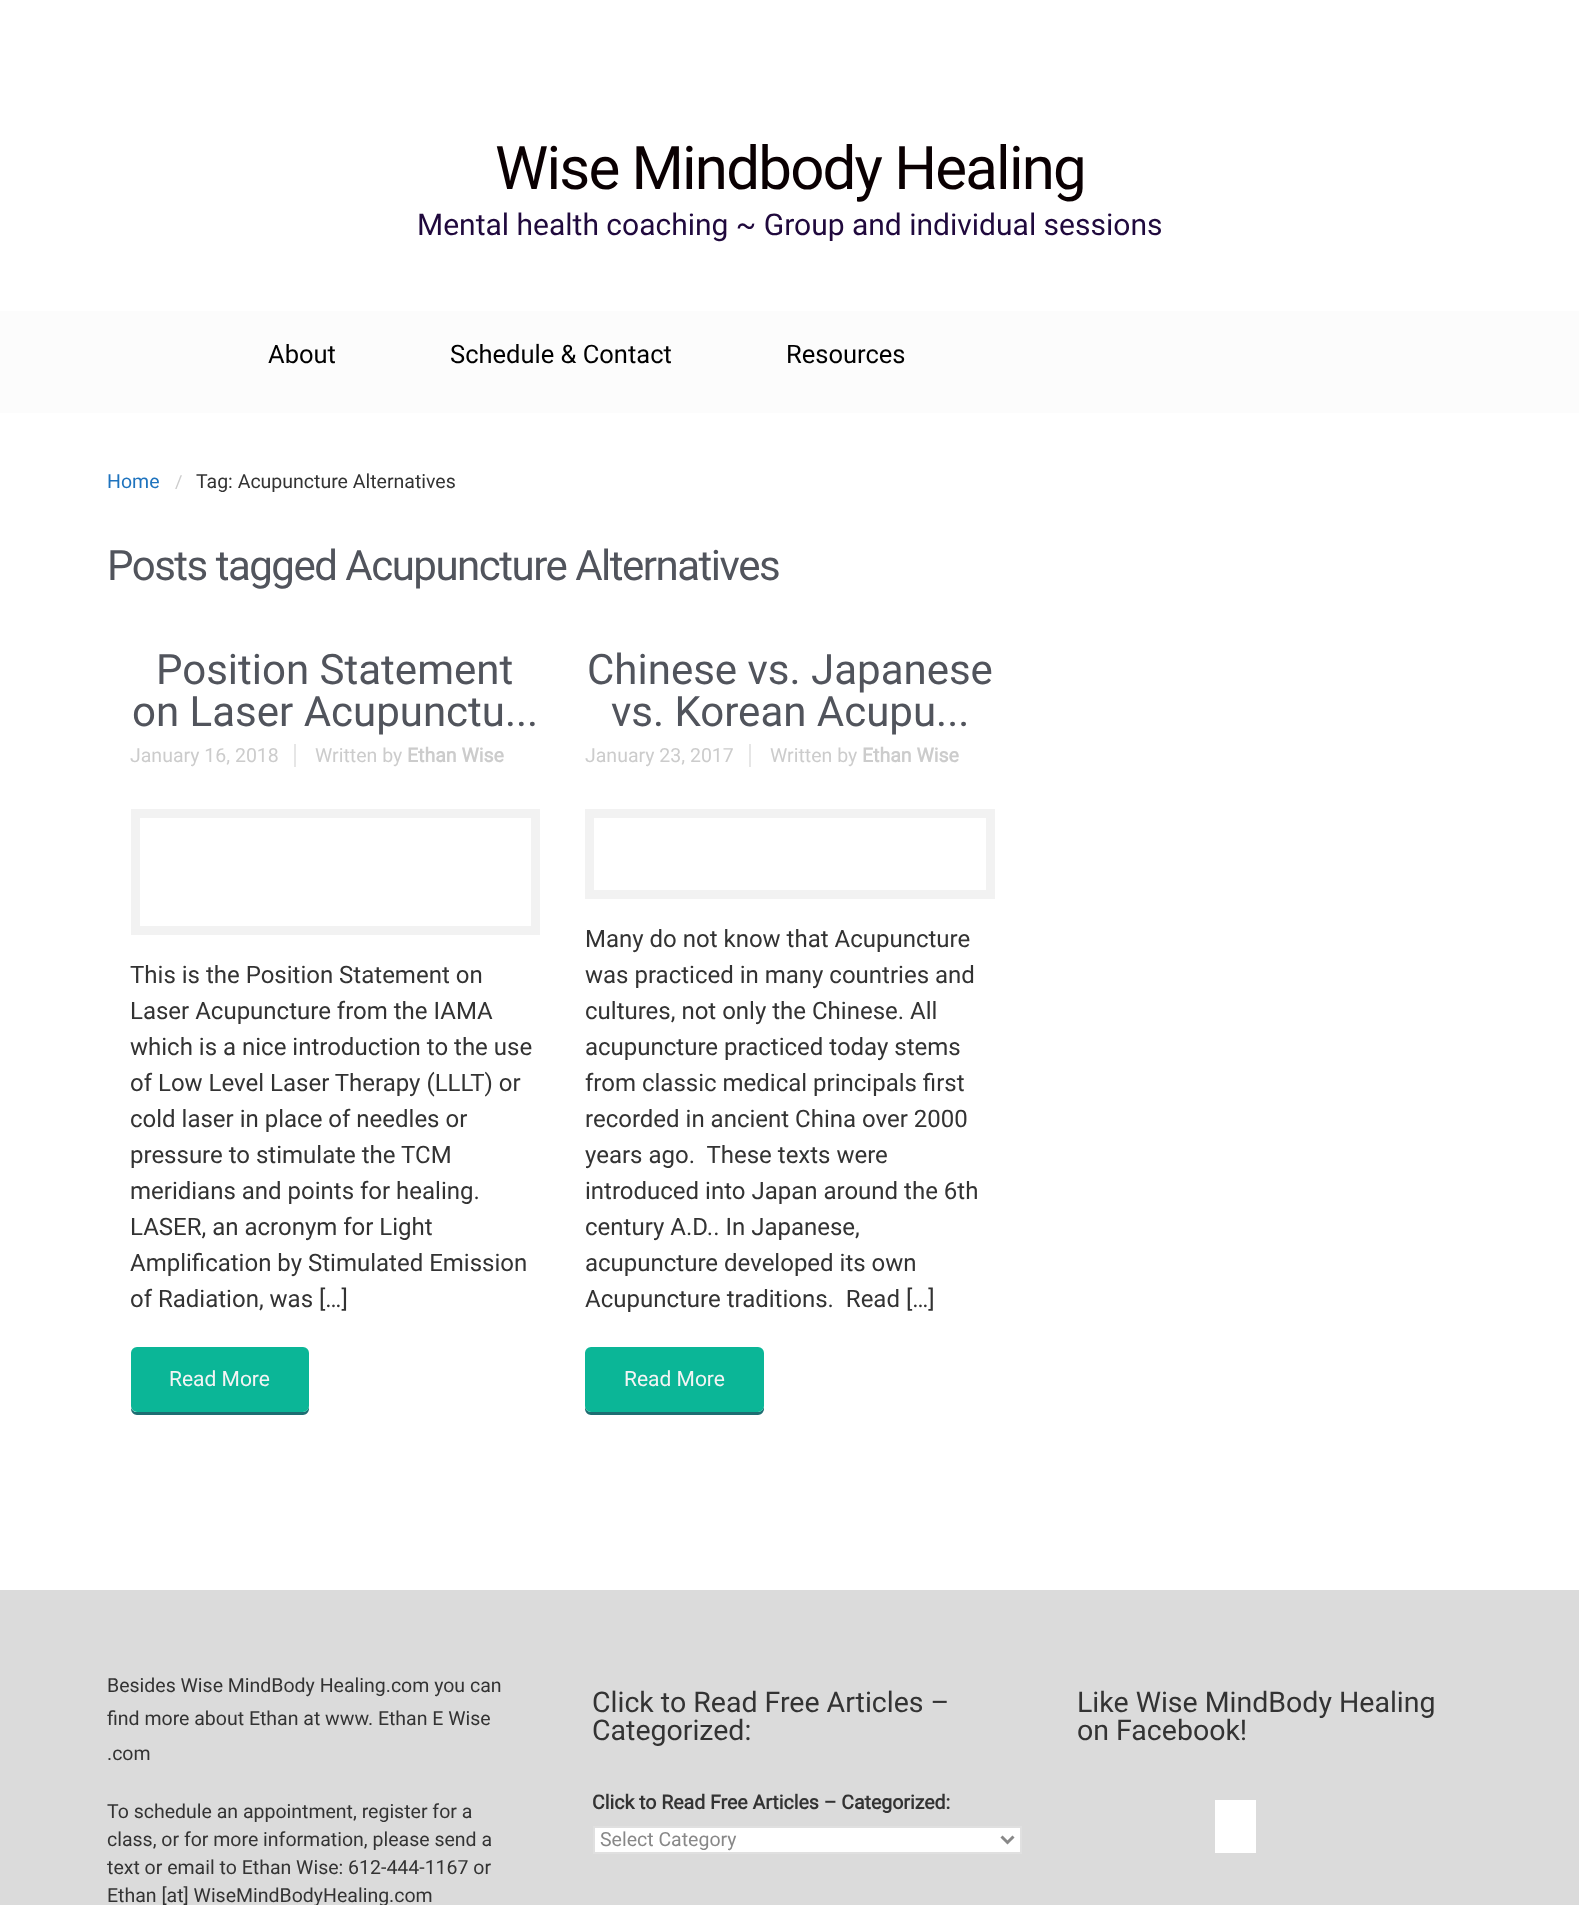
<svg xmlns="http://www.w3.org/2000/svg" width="1579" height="1905">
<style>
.a{font:60px Roboto;letter-spacing:-1.8px;fill:#0a0002}
.b{font:30px Roboto;fill:#20093d}
.c{font:25.5px Roboto;fill:#000}
.d{font:19.5px Roboto;fill:#1e73be}
.e{font:18px Roboto;fill:#ccc}
.f{font:19.5px Roboto;fill:#333}
.g{font:42px Roboto;letter-spacing:-1.5px;fill:#51545c}
.h{font:42px Roboto;fill:#51545c}
.i{font:19.5px Roboto;fill:#ccc}
.j{font:bold 19.5px Roboto;fill:#ccc}
.k{font:24px Roboto;fill:#333}
.l{font:21px Roboto;fill:#f4f4f4}
.m{font:28.5px Roboto;fill:#333}
.n{font:bold 19.5px Roboto;fill:#333}
.o{font:19.5px Roboto;fill:#888}
</style>
<rect width="100%" height="100%" fill="#fff"/>
<path fill="#fcfcfc" d="M0 311h1579v102H0z"/>
<path fill="#e6e6e6" d="M294 744h2v23H294z"/>
<path fill="none" stroke="#f2f2f2" stroke-width="9" d="M135.5 813.5h400v117H135.5z"/>
<path fill="#1d6e72" d="M131 1408v1c0 3 3 6 6 6h166c3 0 6-3 6-6v-3c0 3-3 6-6 6h-167c-2 0-4-2-5-4z"/>
<rect fill="#0bb697" stroke="#0bb697" stroke-width="2" x="132" y="1348" width="176" height="63" rx="5"/>
<path fill="#e6e6e6" d="M749 744h2v23H749z"/>
<path fill="none" stroke="#f2f2f2" stroke-width="9" d="M589.5 813.5h401v81H589.5z"/>
<path fill="#1d6e72" d="M585 1406v3c0 3 3 6 6 6h167c3 0 6-3 6-6v-53v-2v52c0 3-3 6-6 6h-167c-3 0-6-3-6-6z"/>
<rect fill="#0bb697" stroke="#0bb697" stroke-width="2" x="586" y="1348" width="177" height="63" rx="5"/>
<path fill="#dbdbdb" d="M0 1590h1579v315H0z"/>
<path fill="#fff" stroke="#e0e0e0" stroke-width="2" d="M594 1827h427v26H594z"/>
<path fill="none" stroke="#888" stroke-width="3" d="M1001.5 1836.5l6 6l6-6"/>
<path fill="#fff" d="M1215 1800h41v53H1215z"/>
<text class="a" x="495" y="189">Wise Mindbody Healing</text>
<text class="b" x="417" y="235">Mental health coaching ~ Group and individual sessions</text>
<text class="c" x="268" y="363">About</text>
<text class="c" x="450" y="363">Schedule &amp; Contact</text>
<text class="c" x="786" y="363">Resources</text>
<text class="d" x="107" y="488">Home</text>
<text class="e" x="175" y="488">/</text>
<text class="f" x="196" y="488">Tag: Acupuncture Alternatives</text>
<text class="g" x="107" y="580">Posts tagged Acupuncture Alternatives</text>
<text class="h" x="156" y="684">Position Statement</text>
<text class="h" x="132" y="726">on Laser Acupunctu...</text>
<text class="i" x="130" y="762">January 16, 2018</text>
<text class="i" x="315" y="762">Written by</text>
<text class="j" x="407" y="762">Ethan Wise</text>
<text class="k" x="130" y="983">This is the Position Statement on</text>
<text class="k" x="130" y="1019">Laser Acupuncture from the IAMA</text>
<text class="k" x="130" y="1055">which is a nice introduction to the use</text>
<text class="k" x="130" y="1091">of Low Level Laser Therapy (LLLT) or</text>
<text class="k" x="130" y="1127">cold laser in place of needles or</text>
<text class="k" x="130" y="1163">pressure to stimulate the TCM</text>
<text class="k" x="130" y="1199">meridians and points for healing.</text>
<text class="k" x="130" y="1235">LASER, an acronym for Light</text>
<text class="k" x="130" y="1271">Amplification by Stimulated Emission</text>
<text class="k" x="130" y="1307">of Radiation, was […]</text>
<text class="l" x="169" y="1386">Read More</text>
<text class="h" x="587" y="684">Chinese vs. Japanese</text>
<text class="h" x="611" y="726">vs. Korean Acupu...</text>
<text class="i" x="585" y="762">January 23, 2017</text>
<text class="i" x="770" y="762">Written by</text>
<text class="j" x="862" y="762">Ethan Wise</text>
<text class="k" x="585" y="947">Many do not know that Acupuncture</text>
<text class="k" x="585" y="983">was practiced in many countries and</text>
<text class="k" x="585" y="1019">cultures, not only the Chinese. All</text>
<text class="k" x="585" y="1055">acupuncture practiced today stems</text>
<text class="k" x="585" y="1091">from classic medical principals first</text>
<text class="k" x="585" y="1127">recorded in ancient China over 2000</text>
<text class="k" xml:space="preserve" x="585" y="1163">years ago.  These texts were</text>
<text class="k" x="585" y="1199">introduced into Japan around the 6th</text>
<text class="k" x="585" y="1235">century A.D.. In Japanese,</text>
<text class="k" x="585" y="1271">acupuncture developed its own</text>
<text class="k" xml:space="preserve" x="585" y="1307">Acupuncture traditions.  Read […]</text>
<text class="l" x="624" y="1386">Read More</text>
<text class="f" x="107" y="1692">Besides Wise MindBody Healing.com you can</text>
<text class="f" x="107" y="1725">find more about Ethan at www. Ethan E Wise</text>
<text class="f" x="107" y="1760">.com</text>
<text class="f" x="107" y="1818">To schedule an appointment, register for a</text>
<text class="f" x="107" y="1846">class, or for more information, please send a</text>
<text class="f" x="107" y="1874">text or email to Ethan Wise: 612-444-1167 or</text>
<text class="f" x="107" y="1902">Ethan [at] WiseMindBodyHealing.com</text>
<text class="m" x="592" y="1712">Click to Read Free Articles –</text>
<text class="m" x="592" y="1740">Categorized:</text>
<text class="n" x="592" y="1809">Click to Read Free Articles – Categorized:</text>
<text class="o" x="600" y="1846">Select Category</text>
<text class="m" x="1077" y="1712">Like Wise MindBody Healing</text>
<text class="m" x="1077" y="1740">on Facebook!</text>
</svg>
